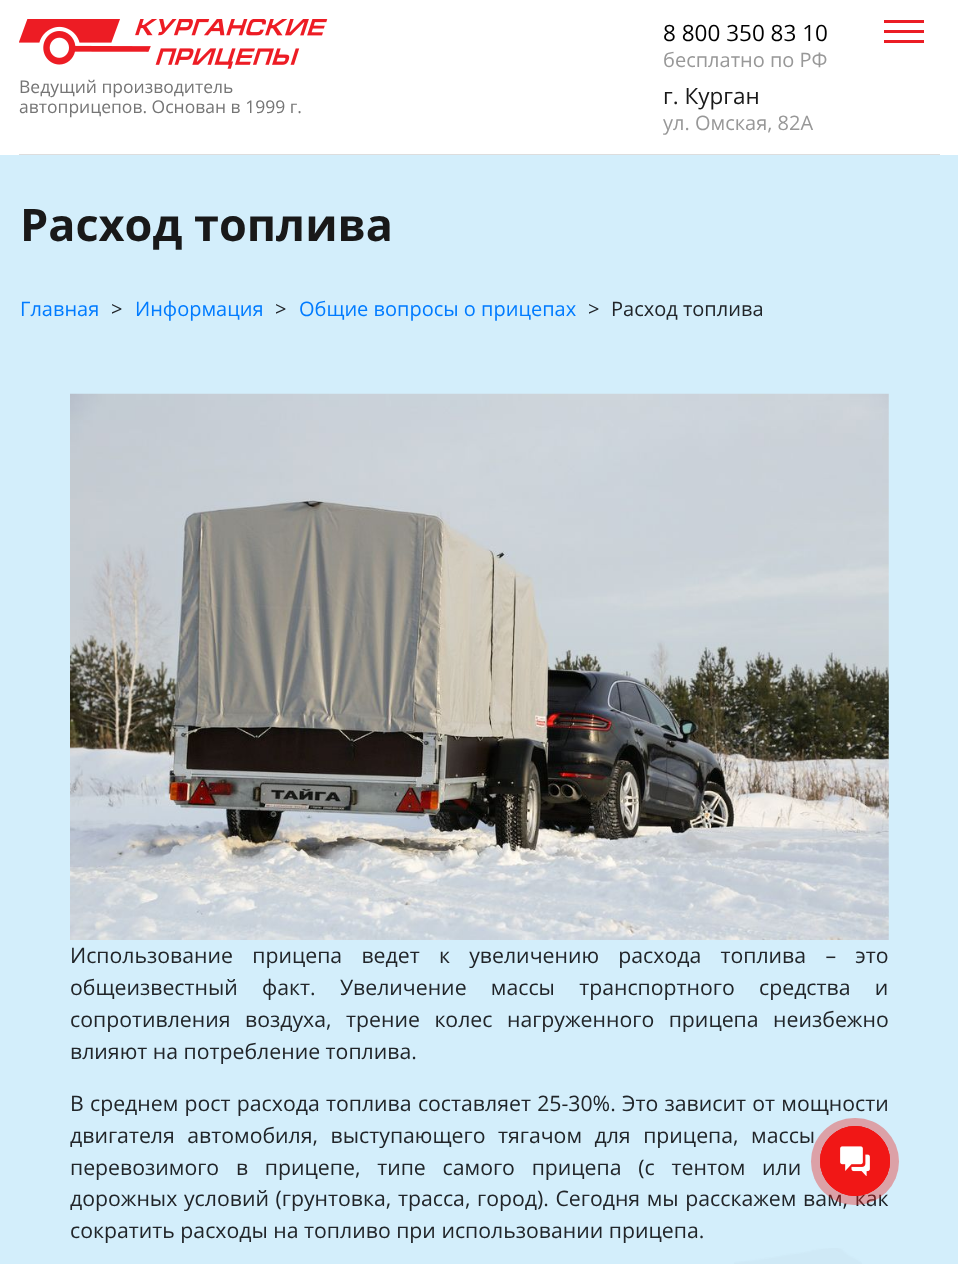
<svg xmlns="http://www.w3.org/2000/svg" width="958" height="1264">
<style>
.a{font:17.5px Open Sans;fill:#757575}
.b{font:22.5px Open Sans;fill:#000}
.c{font:20px Open Sans;fill:#989898}
.d{font:22.5px Open Sans;fill:#191919}
.e{font:bold 45px Open Sans;fill:#191919}
.f{font:20px Open Sans;fill:#007bff}
.g{font:20px Open Sans;fill:#212529}
.h{font:21.25px Open Sans;fill:#212529}
</style>
<rect width="100%" height="100%" fill="#fff"/>
<path fill="#ddd" d="M19 154h921v1H19z"/>
<image href="1.png" x="19" y="19" width="309" height="50"/>
<path fill="#eb1c24" d="M884 30h40v3H884z"/>
<path fill="#eb1c24" d="M884 20h40v3H884z"/>
<path fill="#eb1c24" d="M884 40h40v3H884z"/>
<path fill="#d3eefb" d="M0 155h958v1109H0z"/>
<image href="2.png" x="734" y="1248" width="128" height="16"/>
<image href="3.png" x="70" y="393" width="819" height="547"/>
<text class="a" x="19" y="93">Ведущий производитель</text>
<text class="a" x="19" y="113">автоприцепов. Основан в 1999 г.</text>
<text class="b" x="663" y="41">8 800 350 83 10</text>
<text class="c" x="663" y="67">бесплатно по РФ</text>
<text class="d" x="663" y="104">г. Курган</text>
<text class="c" x="663" y="130">ул. Омская, 82А</text>
<text class="e" x="20" y="241">Расход топлива</text>
<text class="f" x="20" y="316">Главная</text>
<text class="g" x="111" y="316">&gt;</text>
<text class="f" x="135" y="316">Информация</text>
<text class="g" x="275" y="316">&gt;</text>
<text class="f" x="299" y="316">Общие вопросы о прицепах</text>
<text class="g" x="588" y="316">&gt;</text>
<text class="g" x="611" y="316">Расход топлива</text>
<text class="h" x="70" y="963" word-spacing="13.75">Использование прицепа ведет к увеличению расхода топлива – это</text>
<text class="h" x="70" y="995" word-spacing="18.75">общеизвестный факт. Увеличение массы транспортного средства и</text>
<text class="h" x="70" y="1027" word-spacing="9">сопротивления воздуха, трение колес нагруженного прицепа неизбежно</text>
<text class="h" x="70" y="1059">влияют на потребление топлива.</text>
<text class="h" x="70" y="1111" word-spacing="0.75">В среднем рост расхода топлива составляет 25-30%. Это зависит от мощности</text>
<text class="h" x="70" y="1143" word-spacing="7">двигателя автомобиля, выступающего тягачом для прицепа, массы</text>
<text class="h" x="70" y="1175" word-spacing="11.25">перевозимого в прицепе, типе самого прицепа (с тентом или</text>
<text class="h" x="70" y="1206" word-spacing="1.1">дорожных условий (грунтовка, трасса, город). Сегодня мы расскажем вам, как</text>
<text class="h" x="70" y="1238">сократить расходы на топливо при использовании прицепа.</text>
<rect fill="#f1171633" x="811" y="1118" width="88" height="87" rx="43.5"/>
<circle fill="none" stroke="#f11716" cx="855" cy="1161" r="34.5"/>
<rect fill="#f1171633" x="811" y="1118" width="88" height="87" rx="43.5"/>
<circle fill="none" stroke="#f11716" cx="855" cy="1161" r="34.5"/>
<circle fill="#f11716" cx="855" cy="1161" r="35"/>
<image href="4.png" x="840" y="1146" width="30" height="30"/>
</svg>
